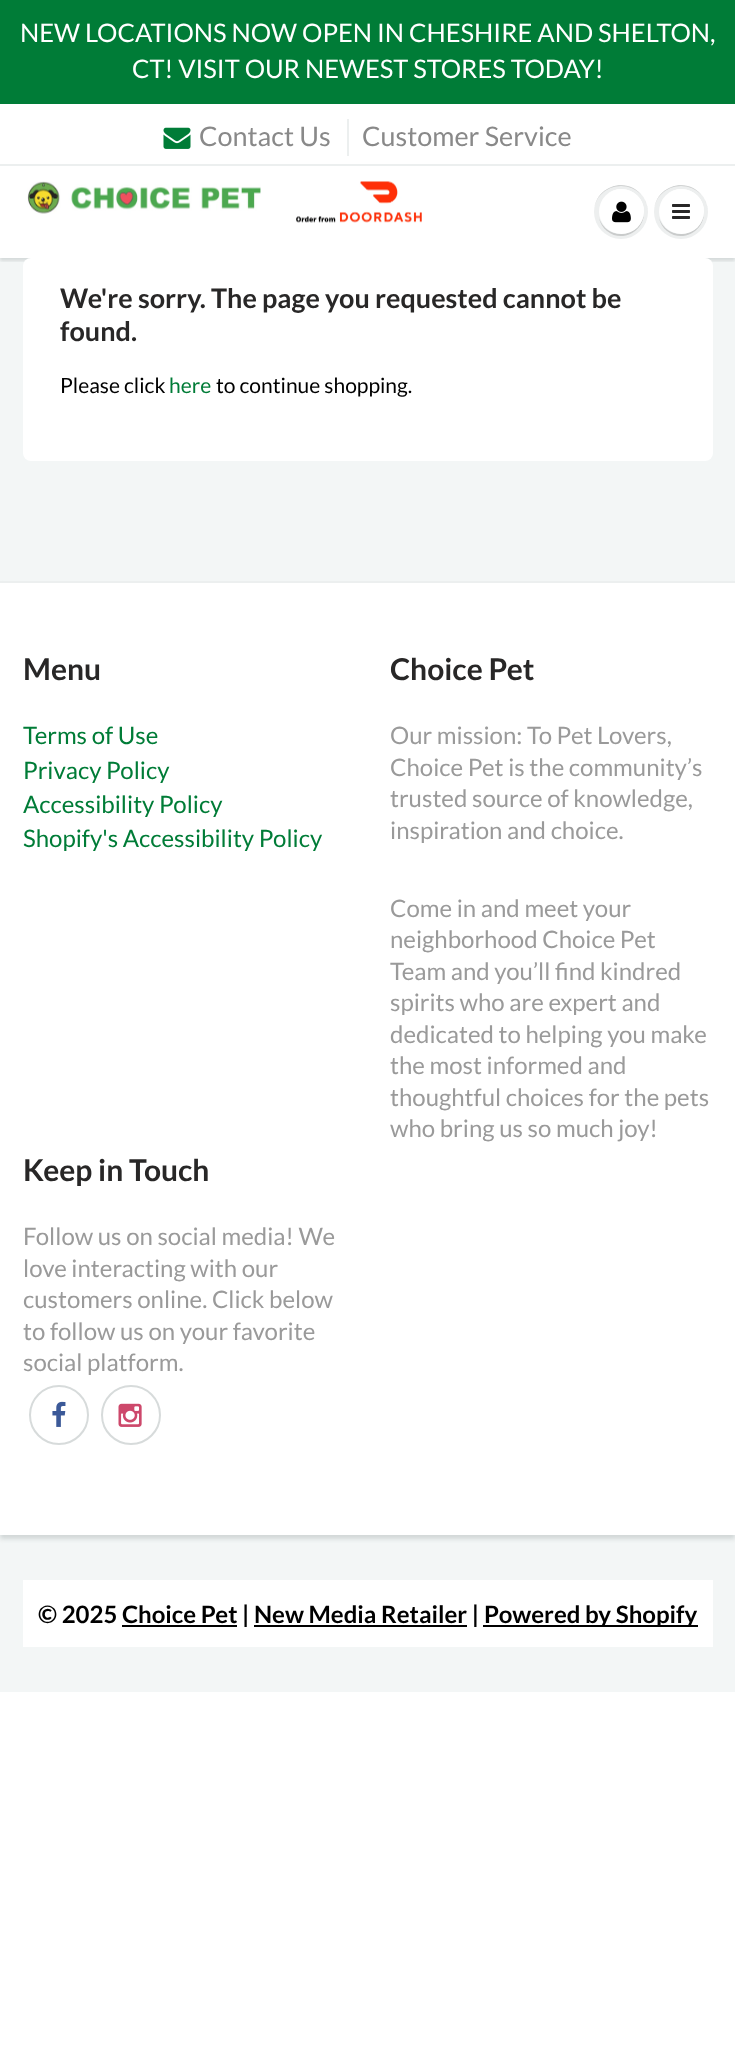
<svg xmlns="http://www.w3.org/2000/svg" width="735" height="2055">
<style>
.a{font:25.5px Lato;fill:#fff}
.b{font:27px Lato;fill:#898989}
.c{font:bold 27px Lato;fill:#282727}
.d{font:21px Lato;fill:#000}
.e{font:21px Lato;fill:#007c37}
.f{font:bold 30px Lato;fill:#282727}
.g{font:24px Lato;fill:#007c37}
.h{font:24px Lato;fill:#9a9a9a}
.i{font:bold 24px Lato;fill:#000}
</style>
<defs>
<clipPath id="clip1"><path d="M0 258h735v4H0z"/></clipPath>
</defs>
<rect width="100%" height="100%" fill="#fff"/>
<path fill="#007c37" d="M0 0h735v104H0z"/>
<image href="1.png" x="163" y="127" width="28" height="22"/>
<path fill="#ecefef" d="M347 119h2v37H347z"/>
<path fill="#f3f6f6" d="M0 258h735v323H0z"/>
<g clip-path="url(#clip1)">
<path fill="#0b191c1f" filter="blur(1.5px)" d="M0 167h735v94H0z"/>
</g>
<path fill="#ecefef" d="M0 164h735v2H0z"/>
<image href="2.png" x="27" y="181" width="234" height="33"/>
<image href="3.png" x="296" y="181" width="126" height="42"/>
<circle fill="#edefef" cx="621" cy="212" r="27"/>
<path fill="#c9cbcb" d="M621 186c15 0 27 12 27 26c0-5-2-11-5-15c-15-22-49-11-49 15c0-14 12-26 27-26z"/>
<path fill="#c9cbcb" d="M599 218c1 5 4 10 8 13c17 14 42-3 36-24c6 28-35 38-44 11z"/>
<circle fill="#fff" cx="621.5" cy="211.5" r="22.5"/>
<path fill="#fff" d="M621 190c17.5 0 24.5 15.5 22 28c7-22-20.5-38.5-37-23c3.5-3 8.5-5 15-5z"/>
<image href="4.png" x="612" y="201" width="19" height="22"/>
<circle fill="#edefef" cx="681" cy="212" r="27"/>
<path fill="#c9cbcb" d="M681 186c15 0 27 12 27 26c0-5-2-11-5-15c-15-22-49-11-49 15c0-14 12-26 27-26z"/>
<path fill="#c9cbcb" d="M659 218c1 5 4 10 8 13c17 14 42-3 36-24c6 28-35 38-44 11z"/>
<circle fill="#fff" cx="681.5" cy="211.5" r="22.5"/>
<path fill="#fff" d="M681 190c17.5 0 24.5 15.5 22 28c7-22-20.5-38.5-37-23c3.5-3 8.5-5 15-5z"/>
<image href="5.png" x="672" y="204" width="18" height="15"/>
<rect fill="#fff" x="23" y="258" width="690" height="203" rx="8"/>
<path fill="#f3f6f6" d="M0 1535h735v157H0z"/>
<path fill="#d1d7d7" filter="blur(2px)" d="M0 585h735v954H0z"/>
<path fill="#fff" d="M0 583h735v952H0z"/>
<path fill="#ecefef" d="M0 581h735v2H0z"/>
<circle fill="none" stroke="#d7dbdb" stroke-width="2" cx="59" cy="1415" r="29"/>
<image href="6.png" x="52" y="1401" width="14" height="26"/>
<circle fill="none" stroke="#d7dbdb" stroke-width="2" cx="131" cy="1415" r="29"/>
<image href="7.png" x="118" y="1403" width="24" height="24"/>
<path fill="#fff" d="M23 1580h690v67H23z"/>
<path fill="#000" d="M483 1625h215v2H483z"/>
<path fill="#000" d="M122 1625h115v2H122z"/>
<path fill="#000" d="M254 1625h213v2H254z"/>
<text class="a" x="20" y="42">NEW LOCATIONS NOW OPEN IN CHESHIRE AND SHELTON,</text>
<text class="a" x="132" y="78">CT! VISIT OUR NEWEST STORES TODAY!</text>
<text class="b" x="199" y="146">Contact Us</text>
<text class="b" x="362" y="146">Customer Service</text>
<text class="c" x="60" y="308">We're sorry. The page you requested cannot be</text>
<text class="c" x="60" y="341">found.</text>
<text class="d" x="60" y="393">Please click</text>
<text class="e" x="169" y="393">here</text>
<text class="d" x="216" y="393">to continue shopping.</text>
<text class="f" x="23" y="680">Menu</text>
<text class="g" x="23" y="744">Terms of Use</text>
<text class="g" x="23" y="779">Privacy Policy</text>
<text class="g" x="23" y="813">Accessibility Policy</text>
<text class="g" x="23" y="847">Shopify's Accessibility Policy</text>
<text class="f" x="390" y="680">Choice Pet</text>
<text class="h" x="390" y="744">Our mission: To Pet Lovers,</text>
<text class="h" x="390" y="776">Choice Pet is the community’s</text>
<text class="h" x="390" y="807">trusted source of knowledge,</text>
<text class="h" x="390" y="839">inspiration and choice.</text>
<text class="h" x="390" y="917">Come in and meet your</text>
<text class="h" x="390" y="948">neighborhood Choice Pet</text>
<text class="h" x="390" y="980">Team and you’ll find kindred</text>
<text class="h" x="390" y="1011">spirits who are expert and</text>
<text class="h" x="390" y="1043">dedicated to helping you make</text>
<text class="h" x="390" y="1074">the most informed and</text>
<text class="h" x="390" y="1106">thoughtful choices for the pets</text>
<text class="h" x="390" y="1137">who bring us so much joy!</text>
<text class="f" x="23" y="1181">Keep in Touch</text>
<text class="h" x="23" y="1245">Follow us on social media! We</text>
<text class="h" x="23" y="1277">love interacting with our</text>
<text class="h" x="23" y="1308">customers online. Click below</text>
<text class="h" x="23" y="1340">to follow us on your favorite</text>
<text class="h" x="23" y="1371">social platform.</text>
<text class="i" x="38" y="1623">© 2025 Choice Pet | New Media Retailer |</text>
<text class="i" x="484" y="1623">Powered by Shopify</text>
</svg>
